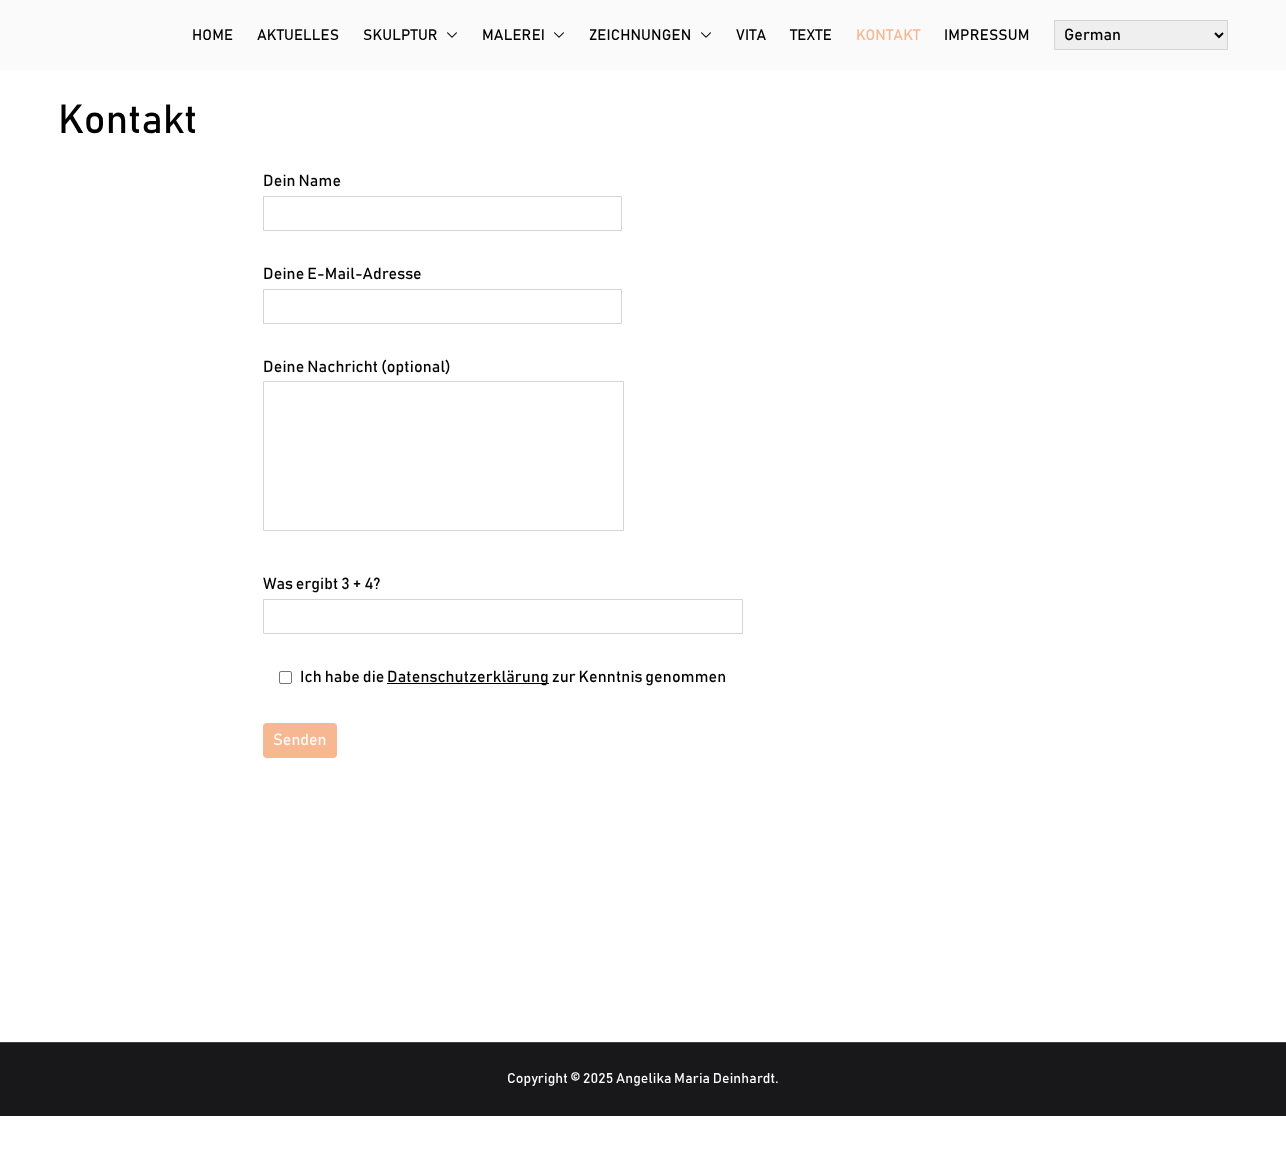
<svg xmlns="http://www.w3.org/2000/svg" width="1286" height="1163">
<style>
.a{font:15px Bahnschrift;letter-spacing:0.15px;fill:#000}
.b{font:15px Bahnschrift;letter-spacing:0.15px;fill:#f7b790}
.c{font:16px Bahnschrift;fill:#000}
.d{font:40px Bahnschrift;letter-spacing:0.15px;fill:#000}
.e{font:16px Bahnschrift;letter-spacing:0.15px;fill:#000}
.f{font:16px Bahnschrift;fill:#fafafa}
.g{font:14px Bahnschrift;letter-spacing:0.15px;fill:#fafafa}
</style>
<rect width="100%" height="100%" fill="#fff"/>
<path fill="#fafafa" d="M0 0h1286v70H0z"/>
<image href="1.png" x="447" y="32" width="10" height="6"/>
<image href="1.png" x="554" y="32" width="10" height="6"/>
<image href="1.png" x="701" y="32" width="10" height="6"/>
<path fill="#efefef" stroke="#d4d4d8" d="M1054.5 20.5h173v29H1054.5z"/>
<path fill="none" stroke="#000" stroke-width="2" d="M1215 33l4 4l4-4"/>
<path fill="none" stroke="#d4d4d8" d="M263.5 196.5h358v34H263.5z"/>
<path fill="none" stroke="#d4d4d8" d="M263.5 289.5h358v34H263.5z"/>
<path fill="none" stroke="#d4d4d8" d="M263.5 381.5h360v149H263.5z"/>
<path fill="none" stroke="#d4d4d8" d="M263.5 599.5h479v34H263.5z"/>
<rect fill="none" stroke="#767676" x="279.5" y="671.5" width="12" height="12" rx="1.5"/>
<path fill="#000" d="M387 683h162v1H387z"/>
<rect fill="#f7b790" x="263" y="723" width="74" height="35" rx="4"/>
<path fill="#18181b" d="M0 1043h1286v73H0z"/>
<path fill="#3f3f46" d="M0 1042h1286v1H0z"/>
<text class="a" x="192" y="40">HOME</text>
<text class="a" x="257" y="40">AKTUELLES</text>
<text class="a" x="363" y="40">SKULPTUR</text>
<text class="a" x="482" y="40">MALEREI</text>
<text class="a" x="589" y="40">ZEICHNUNGEN</text>
<text class="a" x="736" y="40">VITA</text>
<text class="a" x="790" y="40">TEXTE</text>
<text class="b" x="856" y="40">KONTAKT</text>
<text class="a" x="944" y="40">IMPRESSUM</text>
<text class="c" x="1064" y="40">German</text>
<text class="d" x="58" y="133">Kontakt</text>
<text class="e" x="263" y="186">Dein Name</text>
<text class="e" x="263" y="279">Deine E-Mail-Adresse</text>
<text class="e" x="263" y="372">Deine Nachricht (optional)</text>
<text class="e" x="263" y="589">Was ergibt 3 + 4?</text>
<text class="e" x="300" y="682">Ich habe die</text>
<text class="e" x="387" y="682">Datenschutzerklärung zur Kenntnis genommen</text>
<text class="f" x="273" y="745">Senden</text>
<text class="g" x="507" y="1083">Copyright © 2025 Angelika Maria Deinhardt.</text>
</svg>
